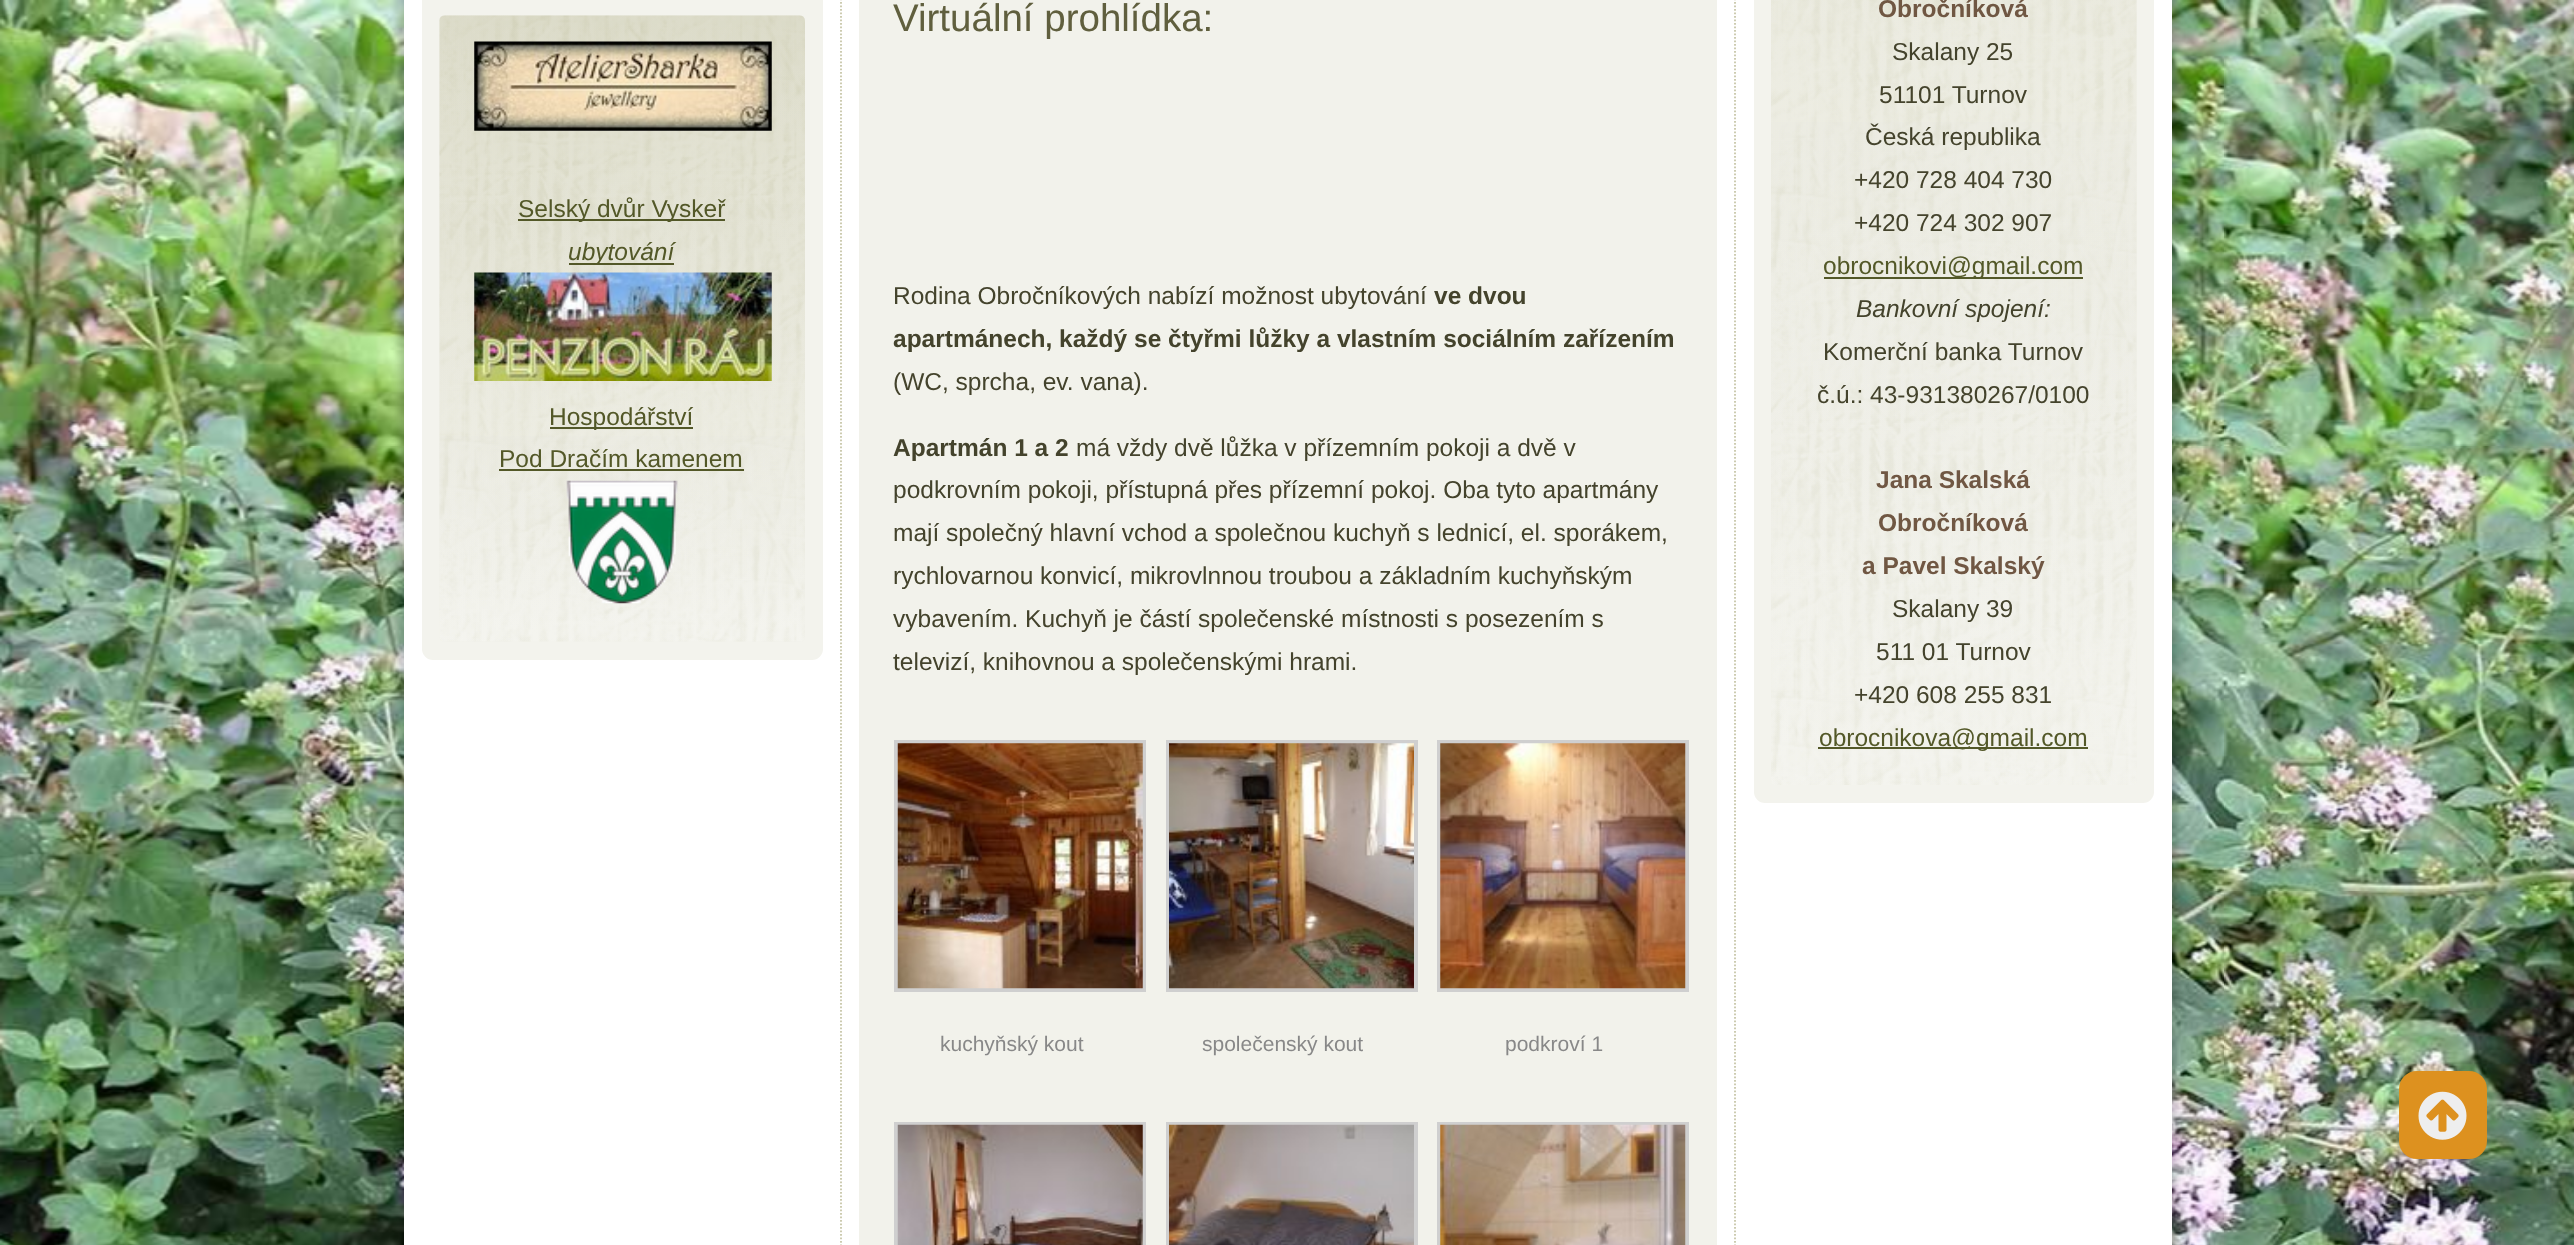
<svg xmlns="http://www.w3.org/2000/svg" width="2574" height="1245">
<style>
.a{font:24.5px Liberation Sans;fill:#535828}
.b{font:italic 24.5px Liberation Sans;fill:#535828}
.c{font:38.5px Liberation Sans;fill:#605f3e}
.d{font:24.5px Liberation Sans;fill:#44432c}
.e{font:bold 24.5px Liberation Sans;fill:#44432c}
.f{font:21px Liberation Sans;fill:#888}
.g{font:bold 24.5px Liberation Sans;fill:#705743}
.h{font:italic 24.5px Liberation Sans;fill:#44432c}
</style>
<rect width="100%" height="100%" fill="#fff"/>
<image href="1.png" x="0" y="0" width="2574" height="1245"/>
<path fill="#00000033" filter="blur(4.5px)" d="M399 -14h1778v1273H399z"/>
<path fill="#fff" d="M404 0h1768v1245H404z"/>
<path fill="none" stroke="#c7c6a8" stroke-width="1.8" stroke-dasharray="1.75 1.75" d="M841-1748v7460"/>
<rect fill="#f3f3ed" x="422" y="-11" width="401" height="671" rx="11"/>
<image href="2.png" x="439" y="15" width="366" height="627"/>
<image href="3.png" x="474" y="41" width="298" height="90"/>
<path fill="#535828" d="M518 219h207v2H518z"/>
<path fill="#535828" d="M569 263h105v2H569z"/>
<image href="4.png" x="474" y="272" width="298" height="109"/>
<path fill="#535828" d="M550 427h143v2H550z"/>
<path fill="#535828" d="M499 469h245v2H499z"/>
<image href="5.png" x="566" y="480" width="112" height="124"/>
<path fill="#f2f2eb" d="M859 0h858v1245H859z"/>
<path fill="none" stroke="#cfcfcf" stroke-width="4" d="M896 742h248v248H896z"/>
<image href="6.png" x="897" y="743" width="246" height="246"/>
<path fill="none" stroke="#cfcfcf" stroke-width="4" d="M1168 742h248v248H1168z"/>
<image href="7.png" x="1169" y="743" width="245" height="246"/>
<path fill="none" stroke="#cfcfcf" stroke-width="4" d="M1439 742h248v248H1439z"/>
<image href="8.png" x="1440" y="743" width="246" height="246"/>
<path fill="none" stroke="#cfcfcf" stroke-width="4" d="M896 1124h248v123H896z"/>
<image href="9.png" x="897" y="1124" width="246" height="121"/>
<path fill="none" stroke="#cfcfcf" stroke-width="4" d="M1168 1124h248v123H1168z"/>
<image href="10.png" x="1169" y="1124" width="245" height="121"/>
<path fill="none" stroke="#cfcfcf" stroke-width="4" d="M1439 1124h248v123H1439z"/>
<image href="11.png" x="1440" y="1124" width="246" height="121"/>
<path fill="none" stroke="#c7c6a8" stroke-width="1.8" stroke-dasharray="1.75 1.75" d="M1735-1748v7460"/>
<rect fill="#f3f3ed" x="1754" y="-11" width="400" height="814" rx="11"/>
<image href="12.png" x="1771" y="0" width="366" height="785"/>
<path fill="#535828" d="M1824 277h259v2H1824z"/>
<path fill="#535828" d="M1818 747h270v2H1818z"/>
<rect fill="#dd911f" x="2399" y="1071" width="88" height="88" rx="18"/>
<image href="13.png" x="2418" y="1091" width="49" height="49"/>
<text class="a" x="518" y="217">Selský dvůr Vyskeř</text>
<text class="b" x="568" y="260">ubytování</text>
<text class="a" x="549" y="425">Hospodářství</text>
<text class="a" x="499" y="467">Pod Dračím kamenem</text>
<text class="c" x="893" y="31">Virtuální prohlídka:</text>
<text class="d" x="893" y="304">Rodina Obročníkových nabízí možnost ubytování</text>
<text class="e" x="1434" y="304">ve dvou</text>
<text class="e" x="893" y="347">apartmánech, každý se čtyřmi lůžky a vlastním sociálním zařízením</text>
<text class="d" x="893" y="390">(WC, sprcha, ev. vana).</text>
<text class="e" x="893" y="456">Apartmán 1 a 2</text>
<text class="d" x="1076" y="456">má vždy dvě lůžka v přízemním pokoji a dvě v</text>
<text class="d" x="893" y="498">podkrovním pokoji, přístupná přes přízemní pokoj. Oba tyto apartmány</text>
<text class="d" x="893" y="541">mají společný hlavní vchod a společnou kuchyň s lednicí, el. sporákem,</text>
<text class="d" x="893" y="584">rychlovarnou konvicí, mikrovlnnou troubou a základním kuchyňským</text>
<text class="d" x="893" y="627">vybavením. Kuchyň je částí společenské místnosti s posezením s</text>
<text class="d" x="893" y="670">televizí, knihovnou a společenskými hrami.</text>
<text class="f" x="940" y="1051">kuchyňský kout</text>
<text class="f" x="1202" y="1051">společenský kout</text>
<text class="f" x="1505" y="1051">podkroví 1</text>
<text class="g" x="1878" y="17">Obročníková</text>
<text class="d" x="1892" y="60">Skalany 25</text>
<text class="d" x="1879" y="103">51101 Turnov</text>
<text class="d" x="1865" y="145">Česká republika</text>
<text class="d" x="1854" y="188">+420 728 404 730</text>
<text class="d" x="1854" y="231">+420 724 302 907</text>
<text class="a" x="1823" y="274">obrocnikovi@gmail.com</text>
<text class="h" x="1856" y="317">Bankovní spojení:</text>
<text class="d" x="1823" y="360">Komerční banka Turnov</text>
<text class="d" x="1817" y="403">č.ú.: 43-931380267/0100</text>
<text class="g" x="1876" y="488">Jana Skalská</text>
<text class="g" x="1878" y="531">Obročníková</text>
<text class="g" x="1862" y="574">a Pavel Skalský</text>
<text class="d" x="1892" y="617">Skalany 39</text>
<text class="d" x="1876" y="660">511 01 Turnov</text>
<text class="d" x="1854" y="703">+420 608 255 831</text>
<text class="a" x="1819" y="746">obrocnikova@gmail.com</text>
</svg>
